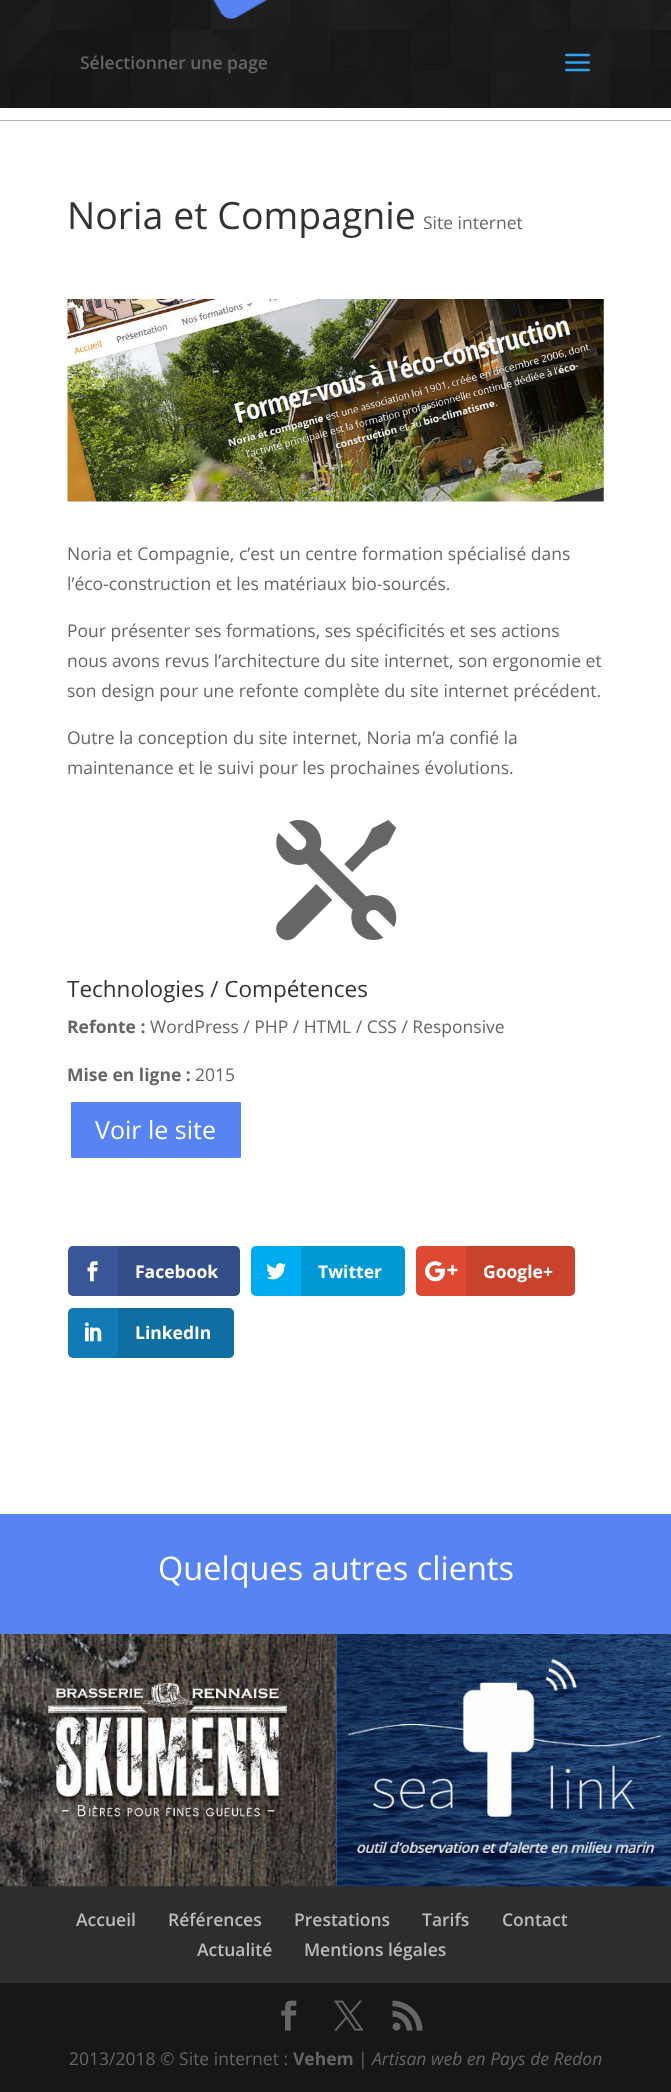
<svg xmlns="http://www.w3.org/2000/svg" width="671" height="2092">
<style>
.a{font:600 17.5px Open Sans;fill:#666}
.b{font:37.5px Open Sans;fill:#333}
.c{font:17.5px Open Sans;fill:#666}
.d{font:22.5px Open Sans;fill:#333}
.e{font:bold 17.5px Open Sans;fill:#666}
.f{font:25px Open Sans;fill:#fff}
.g{font:bold 17.5px Open Sans;fill:#fff}
.h{font:32.5px Open Sans;fill:#fff}
.i{font:600 17.5px Open Sans;fill:#bbb}
.j{font:italic 17.5px Open Sans;fill:#666}
</style>
<rect width="100%" height="100%" fill="#fff"/>
<path fill="#e6e6e6" d="M0 120h671v1H0z"/>
<image href="1.png" x="0" y="0" width="671" height="121"/>
<path fill="#fff" d="M0 108h671v12H0z"/>
<image href="2.png" x="212" y="0" width="56" height="19"/>
<image href="3.png" x="565" y="53" width="25" height="19"/>
<image href="4.png" x="67" y="299" width="537" height="203"/>
<image href="5.png" x="276" y="820" width="121" height="121"/>
<rect fill="#5783f3" stroke="#fff" stroke-width="3" x="69.5" y="1100.5" width="173" height="59" rx="2.5"/>
<rect fill="#3a579a" x="68" y="1246" width="172" height="50" rx="5"/>
<image href="6.png" x="87" y="1261" width="11" height="21"/>
<path fill="#0000001a" d="M118 1246h117c3 0 5 2 5 5v40c0 3-2 5-5 5h-117z"/>
<rect fill="#00abf0" x="251" y="1246" width="154" height="50" rx="5"/>
<image href="7.png" x="266" y="1263" width="21" height="17"/>
<path fill="#0000001a" d="M301 1246h99c3 0 5 2 5 5v40c0 3-2 5-5 5h-99z"/>
<rect fill="#df4a32" x="416" y="1246" width="159" height="50" rx="5"/>
<image href="8.png" x="425" y="1261" width="33" height="21"/>
<path fill="#0000001a" d="M466 1246h104c3 0 5 2 5 5v40c0 3-2 5-5 5h-104z"/>
<rect fill="#127bb6" x="68" y="1308" width="166" height="50" rx="5"/>
<image href="9.png" x="85" y="1322" width="17" height="20"/>
<path fill="#0000001a" d="M118 1308h111c3 0 5 2 5 5v40c0 3-2 5-5 5h-111z"/>
<path fill="#5783f3" d="M0 1514h671v372H0z"/>
<path fill="#2d2d2d" d="M0 1886h671v97H0z"/>
<image href="10.png" x="0" y="1634" width="337" height="253"/>
<image href="11.png" x="336" y="1634" width="335" height="253"/>
<path fill="#171717" d="M0 1983h671v109H0z"/>
<image href="12.png" x="281" y="2000" width="16" height="31"/>
<image href="13.png" x="334" y="2000" width="30" height="31"/>
<image href="14.png" x="392" y="2000" width="31" height="31"/>
<text class="a" x="80" y="69">Sélectionner une page</text>
<text class="b" x="67" y="229">Noria et Compagnie</text>
<text class="c" x="423" y="229">Site internet</text>
<text class="c" x="67" y="560">Noria et Compagnie, c’est un centre formation spécialisé dans</text>
<text class="c" x="67" y="590">l’éco-construction et les matériaux bio-sourcés.</text>
<text class="c" x="67" y="637">Pour présenter ses formations, ses spécificités et ses actions</text>
<text class="c" x="67" y="667">nous avons revus l’architecture du site internet, son ergonomie et</text>
<text class="c" x="67" y="697">son design pour une refonte complète du site internet précédent.</text>
<text class="c" x="67" y="744">Outre la conception du site internet, Noria m’a confié la</text>
<text class="c" x="67" y="774">maintenance et le suivi pour les prochaines évolutions.</text>
<text class="d" x="67" y="997">Technologies / Compétences</text>
<text class="e" x="67" y="1033">Refonte :</text>
<text class="c" x="150" y="1033">WordPress / PHP / HTML / CSS / Responsive</text>
<text class="e" x="67" y="1081">Mise en ligne :</text>
<text class="c" x="195" y="1081">2015</text>
<text class="f" x="95" y="1139">Voir le site</text>
<text class="g" x="135" y="1278">Facebook</text>
<text class="g" x="318" y="1278">Twitter</text>
<text class="g" x="483" y="1278">Google+</text>
<text class="g" x="135" y="1339">LinkedIn</text>
<text class="h" x="158" y="1580">Quelques autres clients</text>
<text class="i" x="76" y="1926">Accueil</text>
<text class="i" x="168" y="1926">Références</text>
<text class="i" x="294" y="1926">Prestations</text>
<text class="i" x="422" y="1926">Tarifs</text>
<text class="i" x="502" y="1926">Contact</text>
<text class="i" x="197" y="1956">Actualité</text>
<text class="i" x="304" y="1956">Mentions légales</text>
<text class="c" x="69" y="2065">2013/2018 © Site internet :</text>
<text class="e" x="293" y="2065">Vehem</text>
<text class="c" x="358" y="2065">|</text>
<text class="j" x="372" y="2065">Artisan web en Pays de Redon</text>
</svg>
